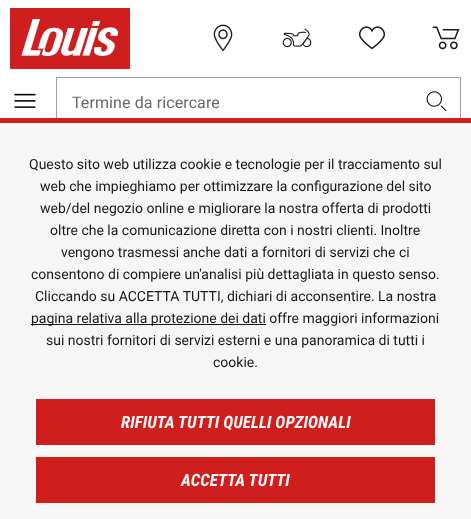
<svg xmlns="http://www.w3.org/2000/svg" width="471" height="519">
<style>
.a{font:16px Roboto;letter-spacing:0.1px;fill:#666}
.b{font:14px 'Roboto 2';fill:#191919}
.c{font:italic bold 17px Roboto Condensed;fill:#f6f6f6}
</style>
<rect width="100%" height="100%" fill="#fff"/>
<image href="1.png" x="10" y="8" width="120" height="61"/>
<image href="2.png" x="213" y="24" width="20" height="28"/>
<image href="3.png" x="282" y="28" width="30" height="20"/>
<image href="4.png" x="358" y="26" width="28" height="24"/>
<image href="5.png" x="432" y="26" width="28" height="24"/>
<image href="6.png" x="14" y="93" width="22" height="15"/>
<path fill="#9e9e9e" d="M56 77h12v1h-11z"/>
<path fill="#00000061" d="M56 127v-50l1 1v48z"/>
<path fill="#9e9e9e" d="M68 77h153v1H68z"/>
<path fill="#9e9e9e" d="M221 77h240l-1 1h-239z"/>
<path fill="#00000061" d="M461 77v50l-1-1v-48z"/>
<image href="7.png" x="426" y="91" width="21" height="21"/>
<path fill="#f6f6f6" d="M0 123h471v396H0z"/>
<path fill="#ce1e1e" d="M0 118h471v5H0z"/>
<path fill="#191919" d="M31 324h235v1H31z"/>
<path fill="#ce1e1e" d="M36 399h399v46H36z"/>
<path fill="#ce1e1e" d="M36 457h399v46H36z"/>
<text class="a" x="72" y="108">Termine da ricercare</text>
<text class="b" x="29" y="169">Questo sito web utilizza cookie e tecnologie per il tracciamento sul</text>
<text class="b" x="40" y="191">web che impieghiamo per ottimizzare la configurazione del sito</text>
<text class="b" x="40" y="213">web/del negozio online e migliorare la nostra offerta di prodotti</text>
<text class="b" x="50" y="235">oltre che la comunicazione diretta con i nostri clienti. Inoltre</text>
<text class="b" x="61" y="257">vengono trasmessi anche dati a fornitori di servizi che ci</text>
<text class="b" x="31" y="279">consentono di compiere un'analisi più dettagliata in questo senso.</text>
<text class="b" x="35" y="301">Cliccando su ACCETTA TUTTI, dichiari di acconsentire. La nostra</text>
<text class="b" x="31" y="323">pagina relativa alla protezione dei dati offre maggiori informazioni</text>
<text class="b" x="46" y="345">sui nostri fornitori di servizi esterni e una panoramica di tutti i</text>
<text class="b" x="213" y="367">cookie.</text>
<text class="c" x="121" y="428">RIFIUTA TUTTI QUELLI OPZIONALI</text>
<text class="c" x="181" y="486">ACCETTA TUTTI</text>
</svg>
